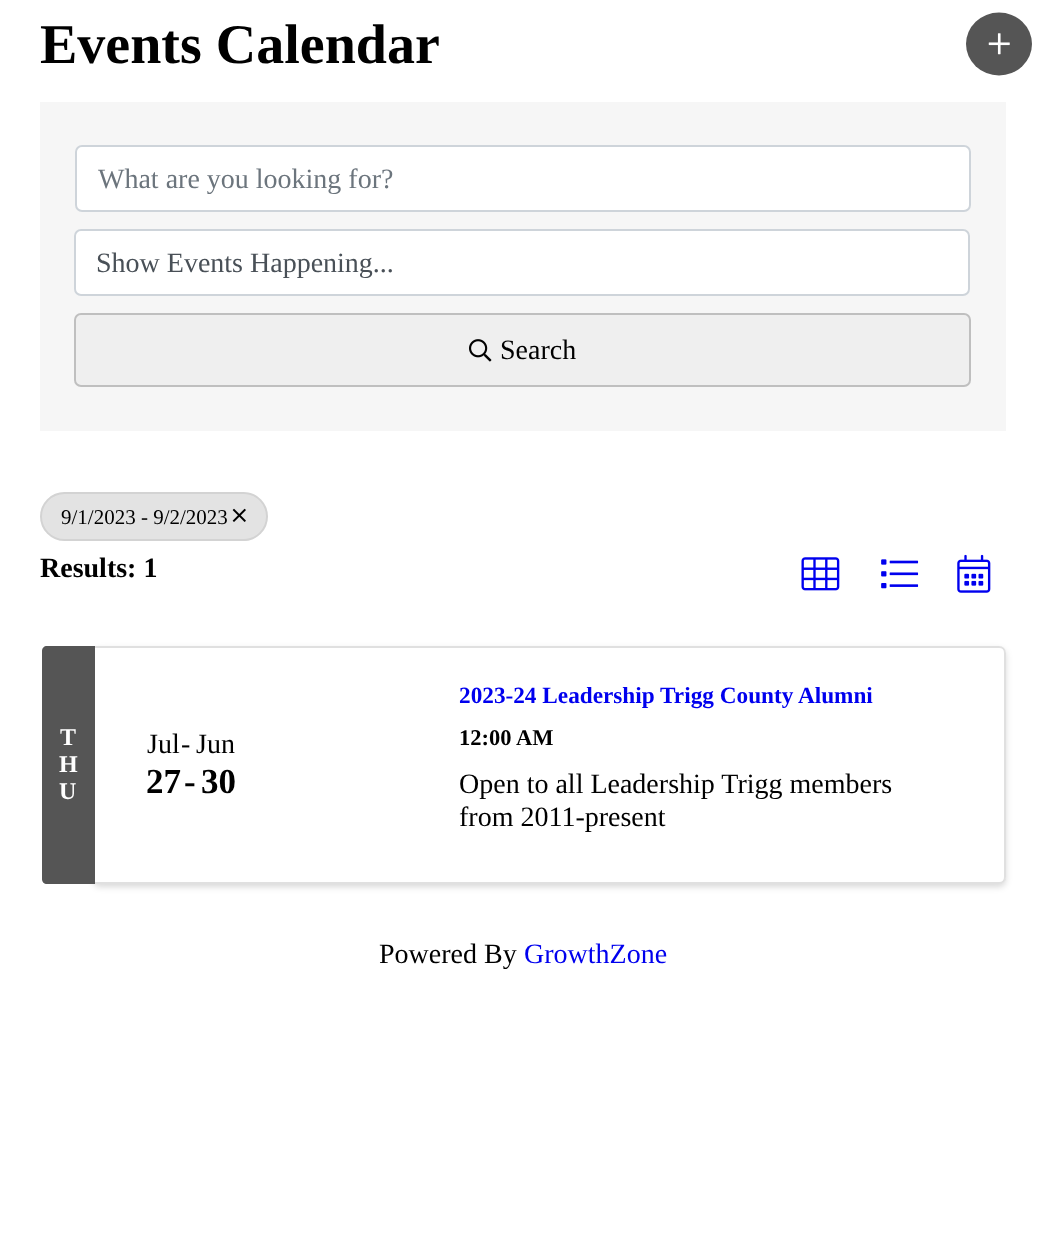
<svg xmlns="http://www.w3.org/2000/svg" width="1046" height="1252">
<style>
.a{font:bold 56px Liberation Serif;fill:#000}
.b{font:28px Liberation Serif;fill:#6c757d}
.c{font:28px Liberation Serif;fill:#495057}
.d{font:28px Liberation Serif;fill:#000}
.e{font:21px Liberation Serif;fill:#000}
.f{font:bold 28px Liberation Serif;fill:#000}
.g{font:bold 24px Liberation Serif;fill:#fff}
.h{font:bold 35px Liberation Serif;fill:#000}
.i{font:bold 23.25px Liberation Serif;fill:#00e}
.j{font:bold 22.5px Liberation Serif;fill:#000}
.k{font:28px Liberation Serif;fill:#00e}
</style>
<rect width="100%" height="100%" fill="#fff"/>
<ellipse fill="#555" cx="999" cy="44" rx="33" ry="31.5"/>
<image href="1.png" x="988" y="33" width="22" height="22"/>
<path fill="#f6f6f6" d="M40 102h966v329H40z"/>
<rect fill="#fff" stroke="#ced4da" stroke-width="2" x="76" y="146" width="894" height="65" rx="6"/>
<rect fill="#fff" stroke="#ced4da" stroke-width="2" x="75" y="230" width="894" height="65" rx="6"/>
<rect fill="#efefef" x="74" y="313" width="897" height="74" rx="7"/>
<rect fill="none" stroke="#00000033" stroke-width="2" x="75" y="314" width="895" height="72" rx="6"/>
<image href="2.png" x="469" y="339" width="23" height="23"/>
<rect fill="#e3e3e3" x="40" y="492" width="228" height="49" rx="24.5"/>
<rect fill="none" stroke="#00000012" stroke-width="2" x="41" y="493" width="226" height="47" rx="23.5"/>
<image href="3.png" x="232" y="508" width="14" height="14"/>
<image href="4.png" x="801" y="557" width="39" height="34"/>
<image href="5.png" x="881" y="559" width="38" height="30"/>
<image href="6.png" x="957" y="554" width="34" height="39"/>
<rect fill="#00000026" filter="blur(3px)" x="93" y="649" width="913" height="238" rx="7"/>
<path fill="#fff" d="M93 646h906c4 0 7 3 7 7v224c0 4-3 7-7 7h-906z"/>
<path fill="none" stroke="#0000001f" stroke-width="2" d="M94 647h905c3.5 0 6 2.5 6 6v224c0 3.5-2.5 6-6 6h-905z"/>
<path fill="#555" d="M47 646h48v238h-48c-3 0-5-2-5-5v-228c0-3 2-5 5-5z"/>
<text class="a" x="40" y="63">Events Calendar</text>
<text class="b" x="98" y="188">What are you looking for?</text>
<text class="c" x="96" y="272">Show Events Happening...</text>
<text class="d" x="500" y="359">Search</text>
<text class="e" x="61" y="524">9/1/2023 - 9/2/2023</text>
<text class="f" x="40" y="577">Results: 1</text>
<text class="g" x="60" y="745">T</text>
<text class="g" x="59" y="772">H</text>
<text class="g" x="59" y="799">U</text>
<text class="d" x="147" y="753">Jul</text>
<text class="d" x="181" y="753">-</text>
<text class="d" x="196" y="753">Jun</text>
<text class="h" x="146" y="793">27</text>
<text class="h" x="184" y="793">-</text>
<text class="h" x="201" y="793">30</text>
<text class="i" x="459" y="703">2023-24 Leadership Trigg County Alumni</text>
<text class="j" x="459" y="745">12:00 AM</text>
<text class="d" x="459" y="793">Open to all Leadership Trigg members</text>
<text class="d" x="459" y="826">from 2011-present</text>
<text class="d" x="379" y="963">Powered By</text>
<text class="k" x="524" y="963">GrowthZone</text>
</svg>
